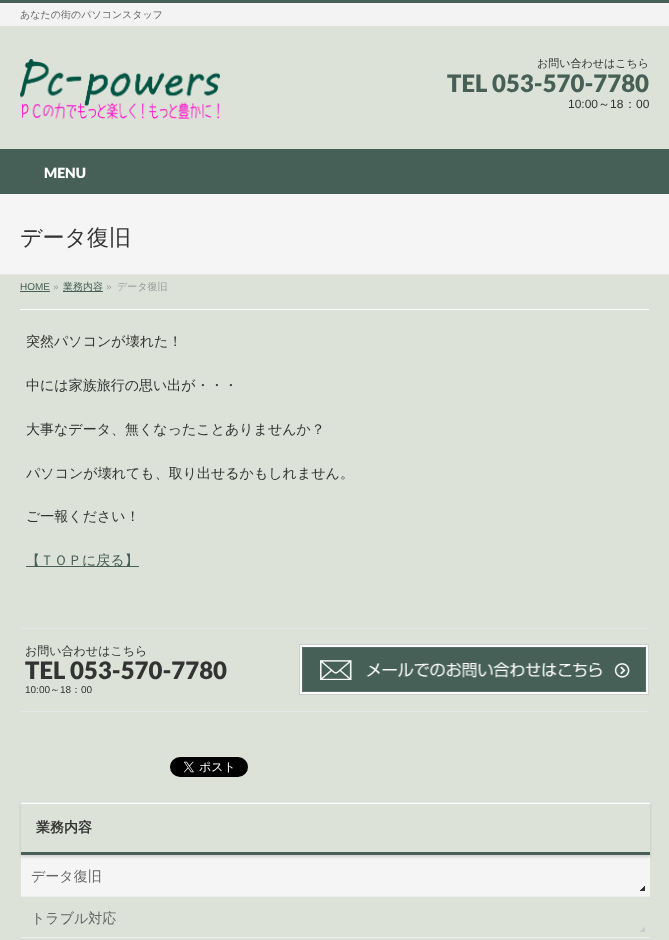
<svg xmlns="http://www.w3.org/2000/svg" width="669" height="940">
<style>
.a{font:500 10px WenQuanYi Zen Hei;fill:#666}
.b{font:500 11px WenQuanYi Zen Hei;fill:#333}
.c{font:900 24px Lato;fill:#476057}
.d{font:12px Liberation Sans;fill:#333}
.e{font:500 12px WenQuanYi Zen Hei;fill:#333}
.f{font:900 14px Lato;fill:#fff}
.g{font:500 22px WenQuanYi Zen Hei;fill:#333}
.h{font:10px Liberation Sans;fill:#476057}
.i{font:10px Liberation Sans;fill:#999}
.j{font:500 10px WenQuanYi Zen Hei;fill:#476057}
.k{font:500 10px WenQuanYi Zen Hei;fill:#999}
.l{font:500 14px WenQuanYi Zen Hei;fill:#333}
.m{font:500 14px WenQuanYi Zen Hei;fill:#476057}
.n{font:900 24px Lato;fill:#333}
.o{font:10px Liberation Sans;fill:#333}
.p{font:500 10px WenQuanYi Zen Hei;fill:#333}
.q{font:bold 14px WenQuanYi Zen Hei;fill:#333}
.r{font:500 14px WenQuanYi Zen Hei;fill:#666}
</style>
<defs>
<clipPath id="clip1"><path d="M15 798h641v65h-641zm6 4h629v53h-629z" clip-rule="evenodd"/></clipPath>
</defs>
<rect width="100%" height="100%" fill="#dce2d7"/>
<path fill="#f3f3f3" d="M0 3h669v23H0z"/>
<path fill="#476057" d="M0 0h669v3H0z"/>
<image href="1.png" x="20" y="59" width="200" height="60"/>
<path fill="#476057" d="M0 149h669v45H0z"/>
<path fill="#f5f5f5" d="M0 194h669v80H0z"/>
<path fill="#e5e5e5" d="M0 274h669v1H0z"/>
<path fill="#fff" d="M20 309h629v1H20z"/>
<path fill="#476057" d="M20 291h30v1H20z"/>
<path fill="#476057" d="M63 291h40v1H63z"/>
<path fill="#476057" d="M26 566h113v1H26z"/>
<path fill="#e6e6e6" d="M20 628h629v1H20z"/>
<path fill="#e6e6e6" d="M20 711h629v1H20z"/>
<path fill="#476057" d="M302 647h345v45H302z"/>
<image href="2.png" x="299" y="644" width="350" height="51"/>
<image href="3.png" x="170" y="757" width="78" height="20"/>
<path fill="#f5f5f5" d="M21 855h629v41H21z"/>
<g clip-path="url(#clip1)">
<path fill="#00000026" filter="blur(1.5px)" d="M21 804h629v53H21z"/>
</g>
<path fill="#fff" d="M21 803h629v1H21z"/>
<path fill="#e5e5e5" d="M21 802h629v1H21z"/>
<path fill="#476057" d="M21 852h629v3H21z"/>
<path fill="#eee" d="M21 896h629v1H21z"/>
<image href="4.png" x="640" y="886" width="5" height="5"/>
<path fill="#eee" d="M21 937h629v1H21z"/>
<image href="5.png" x="640" y="927" width="5" height="5"/>
<text class="a" x="20" y="18">あなたの街のパソコンスタッフ</text>
<text class="b" x="537" y="67">お問い合わせはこちら</text>
<text class="c" x="447" y="92">TEL 053-570-7780</text>
<text class="d" x="568" y="108">10:00</text>
<text class="e" x="598" y="108">～</text>
<text class="d" x="610" y="108">18</text>
<text class="e" x="624" y="108">：</text>
<text class="d" x="636" y="108">00</text>
<text class="f" x="44" y="178">MENU</text>
<text class="g" x="20" y="245">データ復旧</text>
<text class="h" x="20" y="290">HOME</text>
<text class="i" x="53" y="290">»</text>
<text class="j" x="63" y="290">業務内容</text>
<text class="i" x="106" y="290">»</text>
<text class="k" x="117" y="290">データ復旧</text>
<text class="l" x="26" y="346">突然パソコンが壊れた！</text>
<text class="l" x="26" y="390">中には家族旅行の思い出が・・・</text>
<text class="l" x="26" y="434">大事なデータ、無くなったことありませんか？</text>
<text class="l" x="26" y="478">パソコンが壊れても、取り出せるかもしれません。</text>
<text class="l" x="26" y="521">ご一報ください！</text>
<text class="m" x="26" y="565">【ＴＯＰに戻る】</text>
<text class="e" x="25" y="655">お問い合わせはこちら</text>
<text class="n" x="25" y="679">TEL 053-570-7780</text>
<text class="o" x="25" y="693">10:00</text>
<text class="p" x="50" y="693">～</text>
<text class="o" x="60" y="693">18</text>
<text class="p" x="71" y="693">：</text>
<text class="o" x="81" y="693">00</text>
<text class="q" x="36" y="832">業務内容</text>
<text class="r" x="31" y="881">データ復旧</text>
<text class="r" x="31" y="923">トラブル対応</text>
</svg>
